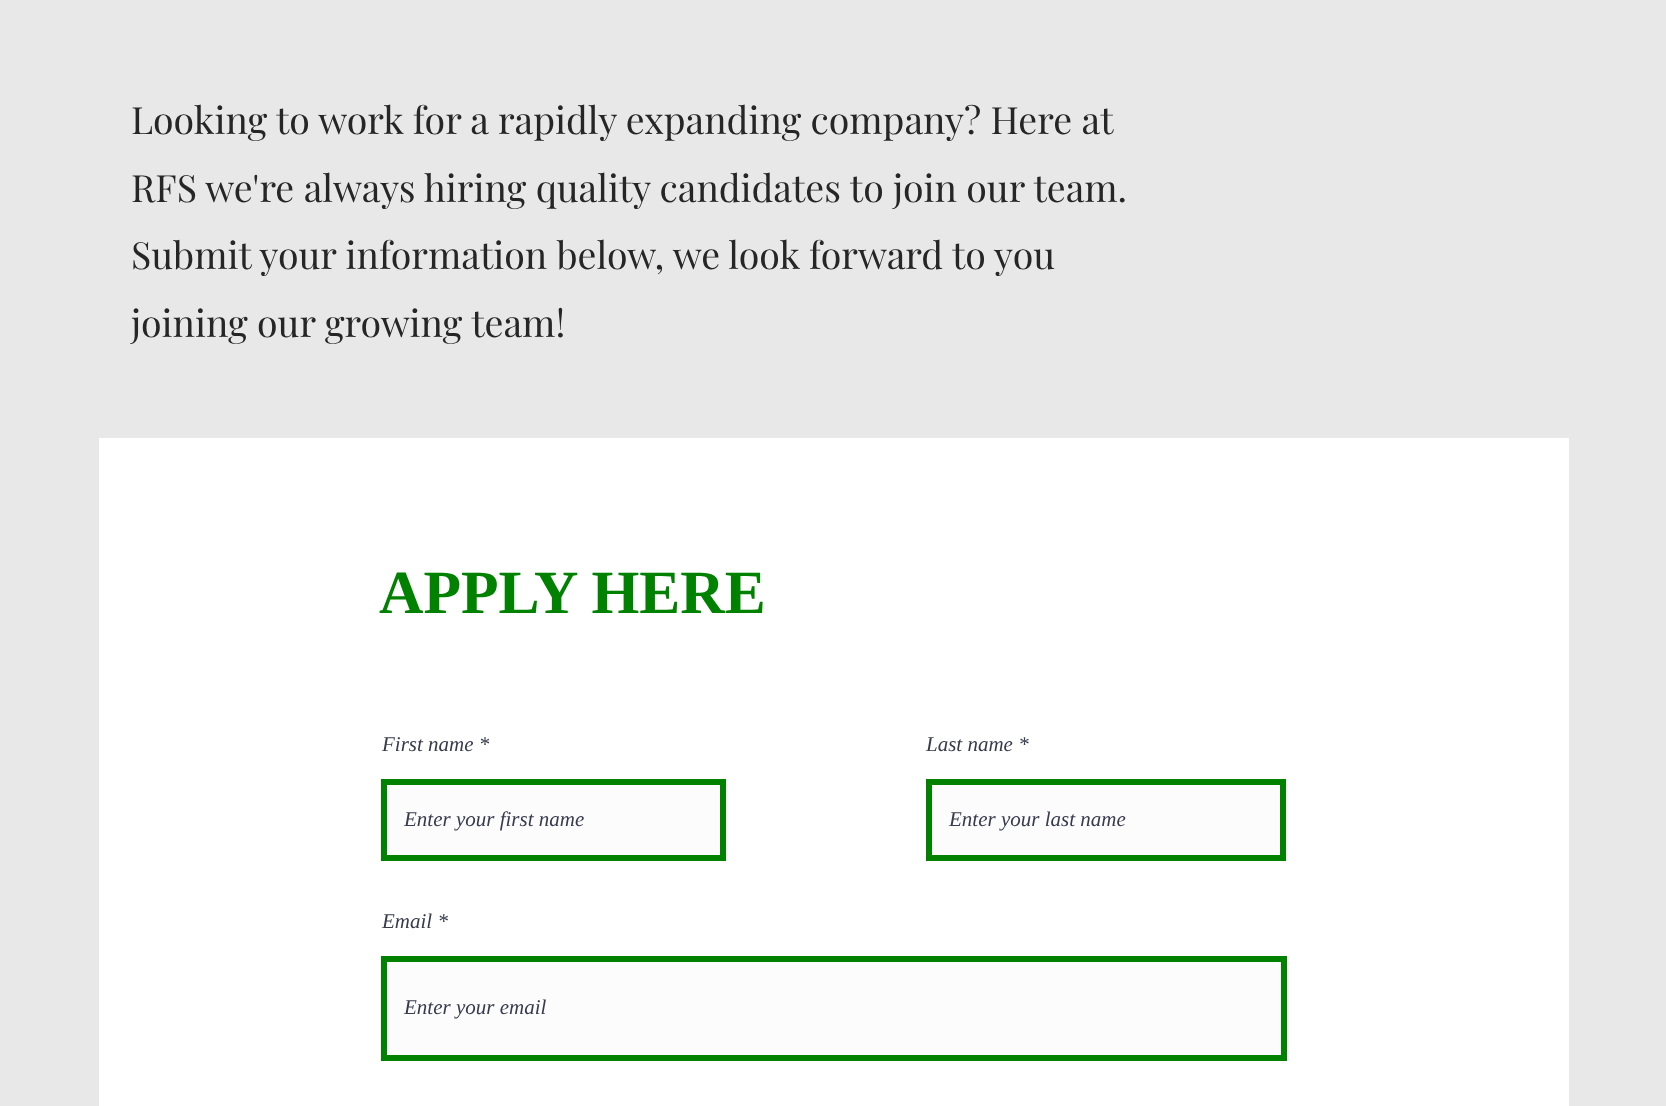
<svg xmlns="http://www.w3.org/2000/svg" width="1666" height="1106">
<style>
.a{font:37.5px Playfair Display;fill:#262626}
.b{font:bold 61.5px Liberation Serif;fill:#008200}
.c{font:italic 21px Liberation Serif;fill:#373b4d}
</style>
<rect width="100%" height="100%" fill="#e8e8e8"/>
<path fill="#fff" d="M99 438h1470v668H99z"/>
<path fill="#fcfcfc" stroke="#008200" stroke-width="6" d="M384 782h339v76H384z"/>
<path fill="#fcfcfc" stroke="#008200" stroke-width="6" d="M929 782h354v76H929z"/>
<path fill="#fcfcfc" stroke="#008200" stroke-width="6" d="M384 959h900v99H384z"/>
<text class="a" x="131" y="134">Looking to work for a rapidly expanding company? Here at</text>
<text class="a" x="131" y="202">RFS we're always hiring quality candidates to join our team.</text>
<text class="a" x="131" y="269">Submit your information below, we look forward to you</text>
<text class="a" x="131" y="337">joining our growing team!</text>
<text class="b" x="379" y="613">APPLY HERE</text>
<text class="c" x="382" y="751">First name *</text>
<text class="c" x="404" y="826">Enter your first name</text>
<text class="c" x="926" y="751">Last name *</text>
<text class="c" x="949" y="826">Enter your last name</text>
<text class="c" x="382" y="928">Email *</text>
<text class="c" x="404" y="1014">Enter your email</text>
</svg>
